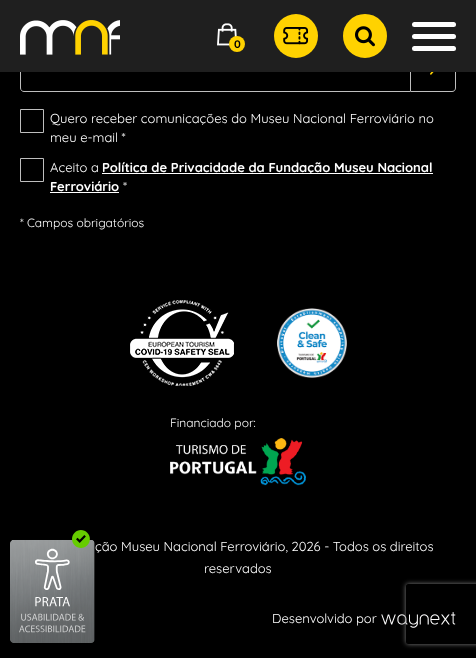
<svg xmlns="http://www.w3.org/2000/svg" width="476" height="658">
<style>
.a{font:bold 11px Quicksand;fill:#000}
.b{font:13px Quicksand;fill:#fff}
.c{font:bold 13px Quicksand;fill:#fff}
.d{font:12px Quicksand;fill:#fff}
</style>
<defs>
<clipPath id="clip1"><path d="M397 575h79v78h-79zm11 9h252c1 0 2 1 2 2v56c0 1-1 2-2 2h-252c-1 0-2-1-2-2v-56c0-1 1-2 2-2z" clip-rule="evenodd"/></clipPath>
</defs>
<rect width="100%" height="100%" fill="#000"/>
<path fill="none" stroke="#bebebe" d="M24 48.5h386.5v43h-386.5c-2 0-3.5-1.5-3.5-3.5v-36c0-2 1.5-3.5 3.5-3.5z"/>
<path fill="#bebebe" fill-rule="evenodd" d="M411 48h41c2 0 4 2 4 4v36c0 2-2 4-4 4h-41zm0 1h41c2 0 3 1 3 3v36c0 2-1 3-3 3h-41z"/>
<path fill="#1f1f1f" d="M0 0h476v72H0z"/>
<image href="1.png" x="20" y="20" width="100" height="35"/>
<image href="2.png" x="217" y="23" width="20" height="23"/>
<circle fill="#ffd200" cx="237" cy="44" r="8"/>
<circle fill="#ffd200" cx="296" cy="36" r="22"/>
<image href="3.png" x="283" y="27" width="26" height="18"/>
<circle fill="#ffd200" stroke="#ffd200" stroke-width="3" cx="365" cy="36" r="20.5"/>
<image href="4.png" x="355" y="26" width="20" height="21"/>
<rect fill="#fff" x="412" y="34" width="44" height="5" rx="2.5"/>
<rect fill="#fff" x="412" y="22" width="44" height="5" rx="2.5"/>
<rect fill="#fff" x="412" y="46" width="44" height="5" rx="2.5"/>
<image href="5.png" x="430" y="72" width="4" height="3"/>
<path fill="none" stroke="#bebebe" d="M20.5 109.5h23v23H20.5z"/>
<path fill="none" stroke="#bebebe" d="M20.5 158.5h23v23H20.5z"/>
<path fill="#fff" d="M102 173h331v1H102z"/>
<path fill="#fff" d="M50 192h69v1H50z"/>
<image href="6.png" x="130" y="300" width="104" height="86"/>
<image href="7.png" x="277" y="308" width="70" height="70"/>
<image href="8.png" x="170" y="438" width="136" height="48"/>
<image href="9.png" x="10" y="530" width="85" height="113"/>
<image href="10.png" x="381" y="612" width="75" height="16"/>
<g clip-path="url(#clip1)">
<rect fill="#808080" filter="blur(2.5px)" x="406" y="584" width="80" height="60" rx="2"/>
</g>
<text class="a" x="234" y="48">0</text>
<text class="b" x="50" y="123">Quero receber comunicações do Museu Nacional Ferroviário no</text>
<text class="b" x="50" y="142">meu e-mail *</text>
<text class="b" x="50" y="172">Aceito a</text>
<text class="c" x="102" y="172">Política de Privacidade da Fundação Museu Nacional</text>
<text class="c" x="50" y="191">Ferroviário</text>
<text class="b" x="123" y="191">*</text>
<text class="d" x="20" y="227">* Campos obrigatórios</text>
<text class="d" x="170" y="427">Financiado por:</text>
<text class="b" x="95" y="551">ção Museu Nacional Ferroviário, 2026 - Todos os direitos</text>
<text class="b" x="204" y="573">reservados</text>
<text class="b" x="272" y="623">Desenvolvido por</text>
</svg>
